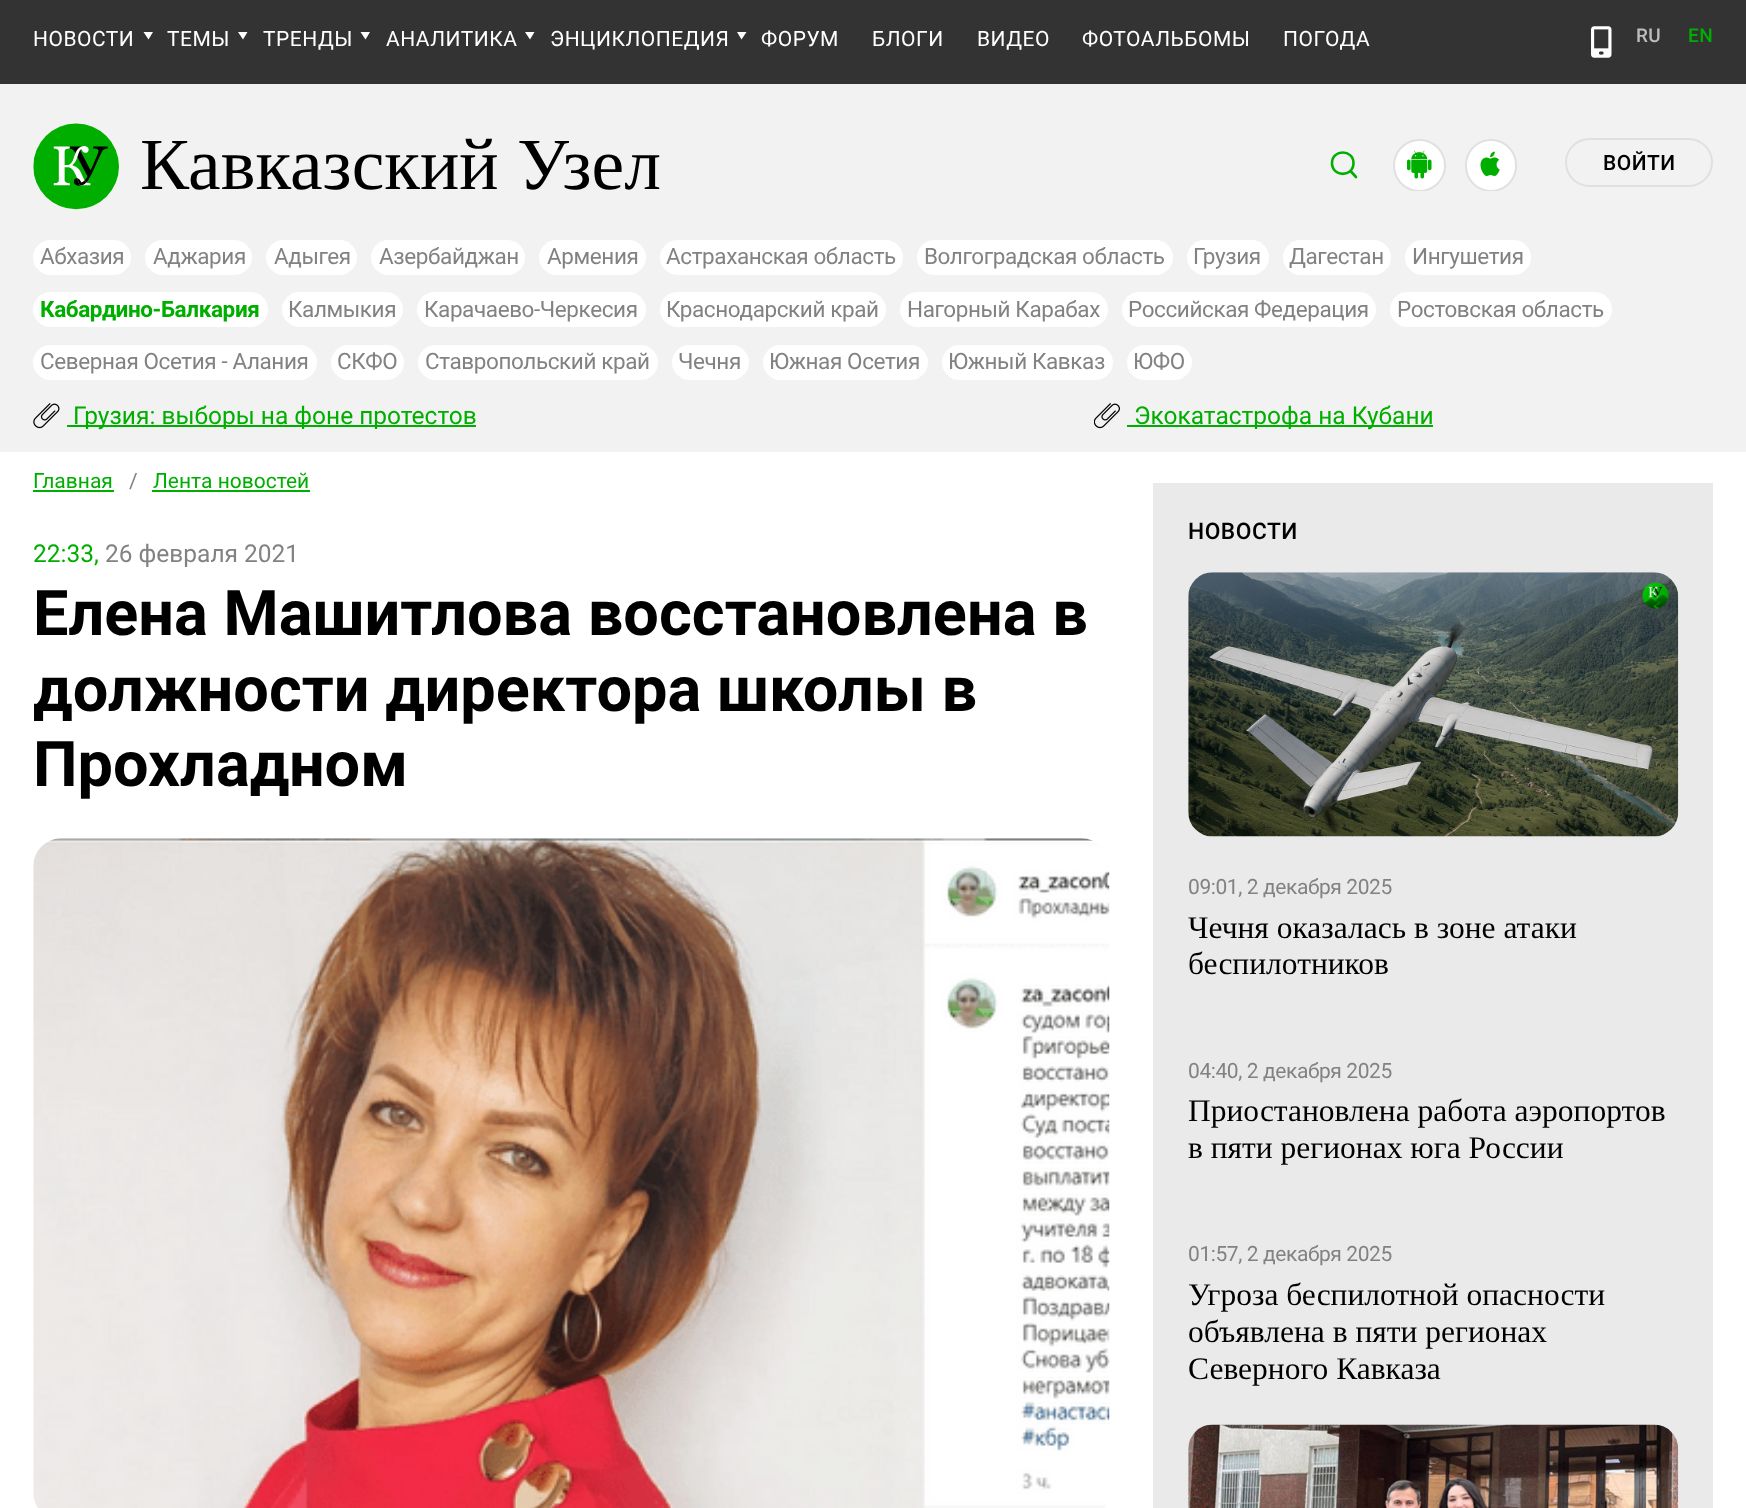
<svg xmlns="http://www.w3.org/2000/svg" width="1746" height="1508">
<style>
.a{font:21px Roboto;letter-spacing:0.5px;fill:#fff}
.b{font:500 19px Roboto;letter-spacing:0.5px;fill:#bdbdbd}
.c{font:500 19px Roboto;letter-spacing:0.5px;fill:#00ae00}
.d{font:73.5px Liberation Serif;fill:#000}
.e{font:500 21px Roboto;letter-spacing:0.5px;fill:#000}
.f{font:22.5px Roboto;letter-spacing:-0.4px;fill:#828282}
.g{font:bold 22.5px Roboto;letter-spacing:-0.4px;fill:#00ae00}
.h{font:24.5px Roboto;fill:#00ae00}
.i{font:21px Roboto;fill:#00ae00}
.j{font:21px Roboto;fill:#828282}
.k{font:24.5px Roboto;fill:#828282}
.l{font:bold 63px Roboto;fill:#000}
.m{font:500 22.75px Roboto;letter-spacing:0.5px;fill:#000}
.n{font:21px Roboto;letter-spacing:-0.4px;fill:#828282}
.o{font:31.5px Liberation Serif;fill:#000}
</style>
<rect width="100%" height="100%" fill="#fff"/>
<path fill="#333" d="M0 0h1746v84H0z"/>
<path fill="#fff" d="M148.5 39.5l4.5-7.5h-9.5z"/>
<path fill="#fff" d="M243 39.5l4.5-7.5h-9.5z"/>
<path fill="#fff" d="M365.5 39.5l4.5-7.5h-9.5z"/>
<path fill="#fff" d="M530 39.5l4.5-7.5h-9.5z"/>
<path fill="#fff" d="M741.5 39.5l5-7.5h-9.5z"/>
<image href="1.png" x="1591" y="26" width="21" height="32"/>
<path fill="#f2f2f2" d="M0 84h1746v368H0z"/>
<image href="2.png" x="33" y="123" width="86" height="87"/>
<path fill="none" stroke="#00ae00" stroke-width="2.6" stroke-linecap="round" stroke-linejoin="round" d="M1356 177l-5.5-6m3-8c0 14.5-21.5 14.5-21.5 0c0-14 21.5-14 21.5 0z"/>
<image href="3.png" x="1393" y="139" width="53" height="52"/>
<image href="4.png" x="1465" y="139" width="52" height="52"/>
<rect fill="none" stroke="#e0e0e0" stroke-width="2" x="1566" y="139" width="146" height="47" rx="23.5"/>
<rect fill="#fff" x="33" y="240" width="98" height="35" rx="17.5"/>
<rect fill="#fff" x="145" y="240" width="107" height="35" rx="17.5"/>
<rect fill="#fff" x="266" y="240" width="91" height="35" rx="17.5"/>
<rect fill="#fff" x="371" y="240" width="154" height="35" rx="17.5"/>
<rect fill="#fff" x="539" y="240" width="107" height="35" rx="17.5"/>
<rect fill="#fff" x="660" y="240" width="243" height="35" rx="17.5"/>
<rect fill="#fff" x="917" y="240" width="256" height="35" rx="17.5"/>
<rect fill="#fff" x="1187" y="240" width="82" height="35" rx="17.5"/>
<rect fill="#fff" x="1283" y="240" width="108" height="35" rx="17.5"/>
<rect fill="#fff" x="1405" y="240" width="126" height="35" rx="17.5"/>
<rect fill="#fff" x="33" y="292" width="235" height="35" rx="17.5"/>
<rect fill="#fff" x="282" y="292" width="121" height="35" rx="17.5"/>
<rect fill="#fff" x="417" y="292" width="229" height="35" rx="17.5"/>
<rect fill="#fff" x="660" y="292" width="226" height="35" rx="17.5"/>
<rect fill="#fff" x="900" y="292" width="208" height="35" rx="17.5"/>
<rect fill="#fff" x="1122" y="292" width="254" height="35" rx="17.5"/>
<rect fill="#fff" x="1390" y="292" width="222" height="35" rx="17.5"/>
<rect fill="#fff" x="33" y="345" width="284" height="35" rx="17.5"/>
<rect fill="#fff" x="331" y="345" width="73" height="35" rx="17.5"/>
<rect fill="#fff" x="418" y="345" width="240" height="35" rx="17.5"/>
<rect fill="#fff" x="672" y="345" width="77" height="35" rx="17.5"/>
<rect fill="#fff" x="763" y="345" width="165" height="35" rx="17.5"/>
<rect fill="#fff" x="942" y="345" width="171" height="35" rx="17.5"/>
<rect fill="#fff" x="1127" y="345" width="65" height="35" rx="17.5"/>
<image href="5.png" x="33" y="403" width="27" height="26"/>
<path fill="#00ae00" d="M67 425h409v2H67z"/>
<image href="6.png" x="1094" y="403" width="26" height="26"/>
<path fill="#00ae00" d="M1127 425h306v2H1127z"/>
<path fill="#00ae00" d="M33 490h81v2H33z"/>
<path fill="#00ae00" d="M152 490h158v2H152z"/>
<image href="7.png" x="33" y="838" width="1077" height="670"/>
<path fill="#eaeaea" d="M1153 483h560v1025H1153z"/>
<image href="8.png" x="1188" y="572" width="491" height="265"/>
<image href="9.png" x="1188" y="1424" width="491" height="84"/>
<text class="a" x="33" y="46">НОВОСТИ</text>
<text class="a" x="167" y="46">ТЕМЫ</text>
<text class="a" x="263" y="46">ТРЕНДЫ</text>
<text class="a" x="386" y="46">АНАЛИТИКА</text>
<text class="a" x="550" y="46">ЭНЦИКЛОПЕДИЯ</text>
<text class="a" x="761" y="46">ФОРУМ</text>
<text class="a" x="872" y="46">БЛОГИ</text>
<text class="a" x="977" y="46">ВИДЕО</text>
<text class="a" x="1082" y="46">ФОТОАЛЬБОМЫ</text>
<text class="a" x="1283" y="46">ПОГОДА</text>
<text class="b" x="1636" y="42">RU</text>
<text class="c" x="1688" y="42">EN</text>
<text class="d" x="140" y="189">Кавказский Узел</text>
<text class="e" x="1603" y="170">ВОЙТИ</text>
<text class="f" x="40" y="264">Абхазия</text>
<text class="f" x="153" y="264">Аджария</text>
<text class="f" x="274" y="264">Адыгея</text>
<text class="f" x="379" y="264">Азербайджан</text>
<text class="f" x="547" y="264">Армения</text>
<text class="f" x="666" y="264">Астраханская область</text>
<text class="f" x="924" y="264">Волгоградская область</text>
<text class="f" x="1193" y="264">Грузия</text>
<text class="f" x="1289" y="264">Дагестан</text>
<text class="f" x="1412" y="264">Ингушетия</text>
<text class="g" x="40" y="317">Кабардино-Балкария</text>
<text class="f" x="288" y="317">Калмыкия</text>
<text class="f" x="424" y="317">Карачаево-Черкесия</text>
<text class="f" x="666" y="317">Краснодарский край</text>
<text class="f" x="907" y="317">Нагорный Карабах</text>
<text class="f" x="1128" y="317">Российская Федерация</text>
<text class="f" x="1397" y="317">Ростовская область</text>
<text class="f" x="40" y="369">Северная Осетия - Алания</text>
<text class="f" x="337" y="369">СКФО</text>
<text class="f" x="425" y="369">Ставропольский край</text>
<text class="f" x="678" y="369">Чечня</text>
<text class="f" x="769" y="369">Южная Осетия</text>
<text class="f" x="948" y="369">Южный Кавказ</text>
<text class="f" x="1133" y="369">ЮФО</text>
<text class="h" x="73" y="424">Грузия: выборы на фоне протестов</text>
<text class="h" x="1134" y="424">Экокатастрофа на Кубани</text>
<text class="i" x="33" y="488">Главная</text>
<text class="j" x="129" y="488">/</text>
<text class="i" x="153" y="488">Лента новостей</text>
<text class="h" x="33" y="562">22:33,</text>
<text class="k" x="105" y="562">26 февраля 2021</text>
<text class="l" x="33" y="635">Елена Машитлова восстановлена в</text>
<text class="l" x="33" y="711">должности директора школы в</text>
<text class="l" x="33" y="786">Прохладном</text>
<text class="m" x="1188" y="539">НОВОСТИ</text>
<text class="n" x="1188" y="894">09:01, 2 декабря 2025</text>
<text class="o" x="1188" y="938">Чечня оказалась в зоне атаки</text>
<text class="o" x="1188" y="974">беспилотников</text>
<text class="n" x="1188" y="1078">04:40, 2 декабря 2025</text>
<text class="o" x="1188" y="1121">Приостановлена работа аэропортов</text>
<text class="o" x="1188" y="1158">в пяти регионах юга России</text>
<text class="n" x="1188" y="1261">01:57, 2 декабря 2025</text>
<text class="o" x="1188" y="1305">Угроза беспилотной опасности</text>
<text class="o" x="1188" y="1342">объявлена в пяти регионах</text>
<text class="o" x="1188" y="1379">Северного Кавказа</text>
</svg>
